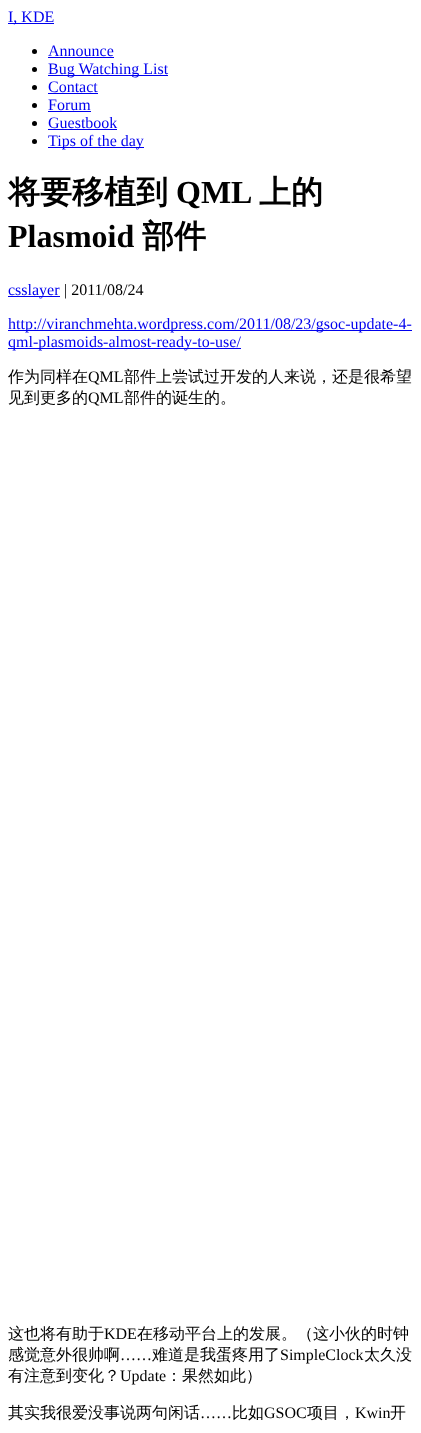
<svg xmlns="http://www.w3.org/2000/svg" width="421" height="1433">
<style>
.a{font:16px Liberation Serif;fill:#00e}
.b{font:bold 32px WenQuanYi Zen Hei;fill:#000}
.c{font:bold 32px Liberation Serif;fill:#000}
.d{font:16px Liberation Serif;fill:#000}
.e{font:500 16px WenQuanYi Zen Hei;fill:#000}
</style>
<rect width="100%" height="100%" fill="#fff"/>
<path fill="#00e" d="M8 23h46v1H8z"/>
<circle fill="#000" cx="34.5" cy="51.5" r="2.5"/>
<path fill="#00e" d="M48 57h66v1H48z"/>
<circle fill="#000" cx="34.5" cy="69.5" r="2.5"/>
<path fill="#00e" d="M48 75h120v1H48z"/>
<circle fill="#000" cx="34.5" cy="87.5" r="2.5"/>
<path fill="#00e" d="M48 93h50v1H48z"/>
<circle fill="#000" cx="34.5" cy="105.5" r="2.5"/>
<path fill="#00e" d="M48 111h43v1H48z"/>
<circle fill="#000" cx="34.5" cy="123.5" r="2.5"/>
<path fill="#00e" d="M48 129h69v1H48z"/>
<circle fill="#000" cx="34.5" cy="141.5" r="2.5"/>
<path fill="#00e" d="M48 147h96v1H48z"/>
<path fill="#00e" d="M8 296h52v1H8z"/>
<path fill="#00e" d="M8 330h404v1H8z"/>
<path fill="#00e" d="M8 348h233v1H8z"/>
<text class="a" x="8" y="22">I, KDE</text>
<text class="a" x="48" y="56">Announce</text>
<text class="a" x="48" y="74">Bug Watching List</text>
<text class="a" x="48" y="92">Contact</text>
<text class="a" x="48" y="110">Forum</text>
<text class="a" x="48" y="128">Guestbook</text>
<text class="a" x="48" y="146">Tips of the day</text>
<text class="b" x="8" y="203">将要移植到</text>
<text class="c" x="176" y="203">QML</text>
<text class="b" x="259" y="203">上的</text>
<text class="c" x="8" y="247">Plasmoid</text>
<text class="b" x="142" y="247">部件</text>
<text class="a" x="8" y="295">csslayer</text>
<text class="d" x="64" y="295">| 2011/08/24</text>
<text class="a" x="8" y="329">http://viranchmehta.wordpress.com/2011/08/23/gsoc-update-4-</text>
<text class="a" x="8" y="347">qml-plasmoids-almost-ready-to-use/</text>
<text class="e" x="8" y="382">作为同样在</text>
<text class="d" x="88" y="382">QML</text>
<text class="e" x="124" y="382">部件上尝试过开发的人来说，还是很希望</text>
<text class="e" x="8" y="403">见到更多的</text>
<text class="d" x="88" y="403">QML</text>
<text class="e" x="124" y="403">部件的诞生的。</text>
<text class="e" x="8" y="1339">这也将有助于</text>
<text class="d" x="104" y="1339">KDE</text>
<text class="e" x="137" y="1339">在移动平台上的发展。（这小伙的时钟</text>
<text class="e" x="8" y="1360">感觉意外很帅啊</text>
<text class="d" x="120" y="1360">……</text>
<text class="e" x="152" y="1360">难道是我蛋疼用了</text>
<text class="d" x="280" y="1360">SimpleClock</text>
<text class="e" x="364" y="1360">太久没</text>
<text class="e" x="8" y="1381">有注意到变化？</text>
<text class="d" x="120" y="1381">Update</text>
<text class="e" x="166" y="1381">：果然如此）</text>
<text class="e" x="8" y="1418">其实我很爱没事说两句闲话</text>
<text class="d" x="200" y="1418">……</text>
<text class="e" x="232" y="1418">比如</text>
<text class="d" x="264" y="1418">GSOC</text>
<text class="e" x="307" y="1418">项目，</text>
<text class="d" x="355" y="1418">Kwin</text>
<text class="e" x="390" y="1418">开</text>
</svg>
